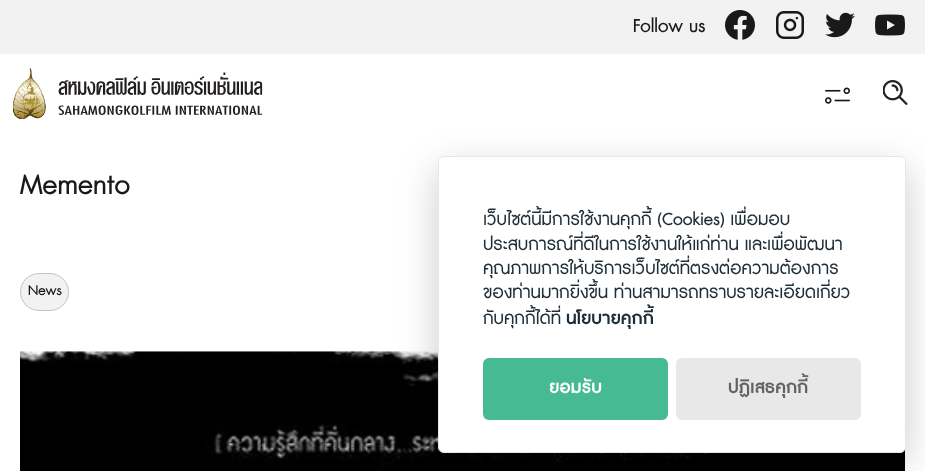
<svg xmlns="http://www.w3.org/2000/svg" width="925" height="471">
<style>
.a{font:20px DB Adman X;fill:#191919}
.b{font:30px DB Adman X;fill:#191919}
.c{font:15px DB Adman X;fill:#191919}
.d{font:18.75px DB Adman X;fill:#1d2e38}
.e{font:bold 18.75px DB Adman X;fill:#1d2e38}
.f{font:bold 18.75px DB Adman X;fill:#fff}
.g{font:bold 18.75px DB Adman X;fill:#636363}
</style>
<rect width="100%" height="100%" fill="#fff"/>
<path fill="#f2f2f2" d="M0 0h925v54H0z"/>
<image href="1.png" x="725" y="10" width="30" height="30"/>
<image href="2.png" x="776" y="11" width="28" height="28"/>
<image href="3.png" x="825" y="12" width="30" height="26"/>
<image href="4.png" x="875" y="14" width="30" height="22"/>
<image href="5.png" x="13" y="68" width="250" height="51"/>
<image href="6.png" x="825" y="87" width="25" height="17"/>
<image href="7.png" x="883" y="80" width="25" height="25"/>
<rect fill="#f2f2f2" stroke="#c4c4c4" x="20.5" y="273.5" width="48" height="37" rx="18.5"/>
<image href="8.png" x="20" y="351" width="885" height="120"/>
<rect fill="#02020333" filter="blur(19px)" x="438" y="169" width="468" height="296" rx="6"/>
<rect fill="#fff" stroke="#e6e6e6" x="438.5" y="156.5" width="467" height="296" rx="5.5"/>
<rect fill="#46ba92" x="483" y="358" width="185" height="62" rx="6"/>
<rect fill="#e8e8e8" x="676" y="358" width="185" height="62" rx="6"/>
<text class="a" x="633" y="32">Follow us</text>
<text class="b" x="20" y="194">Memento</text>
<text class="c" x="28" y="295">News</text>
<text class="d" x="483" y="225">เว็บไซต์นี้มีการใช้งานคุกกี้ (Cookies) เพื่อมอบ</text>
<text class="d" x="483" y="250">ประสบการณ์ที่ดีในการใช้งานให้แก่ท่าน และเพื่อพัฒนา</text>
<text class="d" x="483" y="274">คุณภาพการให้บริการเว็บไซต์ที่ตรงต่อความต้องการ</text>
<text class="d" x="483" y="298">ของท่านมากยิ่งขึ้น ท่านสามารถทราบรายละเอียดเกี่ยว</text>
<text class="d" x="483" y="324">กับคุกกี้ได้ที่</text>
<text class="e" x="566" y="324">นโยบายคุกกี้</text>
<text class="f" x="549" y="393">ยอมรับ</text>
<text class="g" x="728" y="393">ปฏิเสธคุกกี้</text>
</svg>
